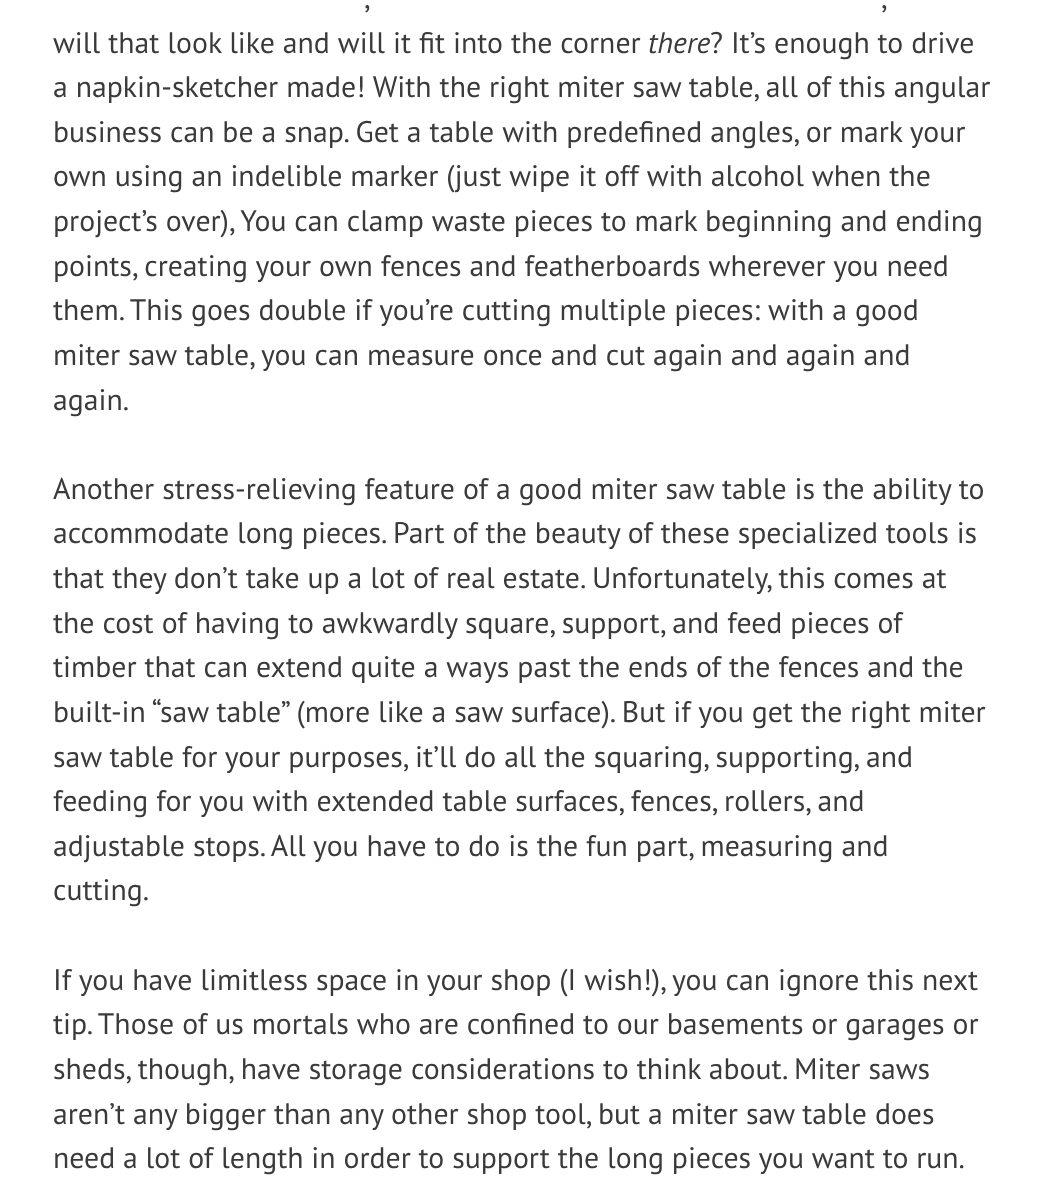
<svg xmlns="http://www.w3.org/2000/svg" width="1043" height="1192">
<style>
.a{font:29.75px PT Sans;fill:#3a3a3a}
.b{font:italic 29.75px PT Sans;fill:#3a3a3a}
</style>
<rect width="100%" height="100%" fill="#fff"/>
<text class="a" x="364" y="8">,</text>
<text class="a" x="881" y="8">,</text>
<text class="a" x="53" y="53">will that look like and will it fit into the corner</text>
<text class="b" x="648" y="53">there</text>
<text class="a" x="710" y="53">? It’s enough to drive</text>
<text class="a" x="53" y="97">a napkin-sketcher made! With the right miter saw table, all of this angular</text>
<text class="a" x="53" y="142">business can be a snap. Get a table with predefined angles, or mark your</text>
<text class="a" x="53" y="186">own using an indelible marker (just wipe it off with alcohol when the</text>
<text class="a" x="53" y="231">project’s over), You can clamp waste pieces to mark beginning and ending</text>
<text class="a" x="53" y="276">points, creating your own fences and featherboards wherever you need</text>
<text class="a" x="53" y="320">them. This goes double if you’re cutting multiple pieces: with a good</text>
<text class="a" x="53" y="365">miter saw table, you can measure once and cut again and again and</text>
<text class="a" x="53" y="410">again.</text>
<text class="a" x="53" y="499">Another stress-relieving feature of a good miter saw table is the ability to</text>
<text class="a" x="53" y="543">accommodate long pieces. Part of the beauty of these specialized tools is</text>
<text class="a" x="53" y="588">that they don’t take up a lot of real estate. Unfortunately, this comes at</text>
<text class="a" x="53" y="633">the cost of having to awkwardly square, support, and feed pieces of</text>
<text class="a" x="53" y="677">timber that can extend quite a ways past the ends of the fences and the</text>
<text class="a" x="53" y="722">built-in “saw table” (more like a saw surface). But if you get the right miter</text>
<text class="a" x="53" y="767">saw table for your purposes, it’ll do all the squaring, supporting, and</text>
<text class="a" x="53" y="811">feeding for you with extended table surfaces, fences, rollers, and</text>
<text class="a" x="53" y="856">adjustable stops. All you have to do is the fun part, measuring and</text>
<text class="a" x="53" y="900">cutting.</text>
<text class="a" x="53" y="990">If you have limitless space in your shop (I wish!), you can ignore this next</text>
<text class="a" x="53" y="1034">tip. Those of us mortals who are confined to our basements or garages or</text>
<text class="a" x="53" y="1079">sheds, though, have storage considerations to think about. Miter saws</text>
<text class="a" x="53" y="1124">aren’t any bigger than any other shop tool, but a miter saw table does</text>
<text class="a" x="53" y="1168" word-spacing="-0.1">need a lot of length in order to support the long pieces you want to run.</text>
</svg>
